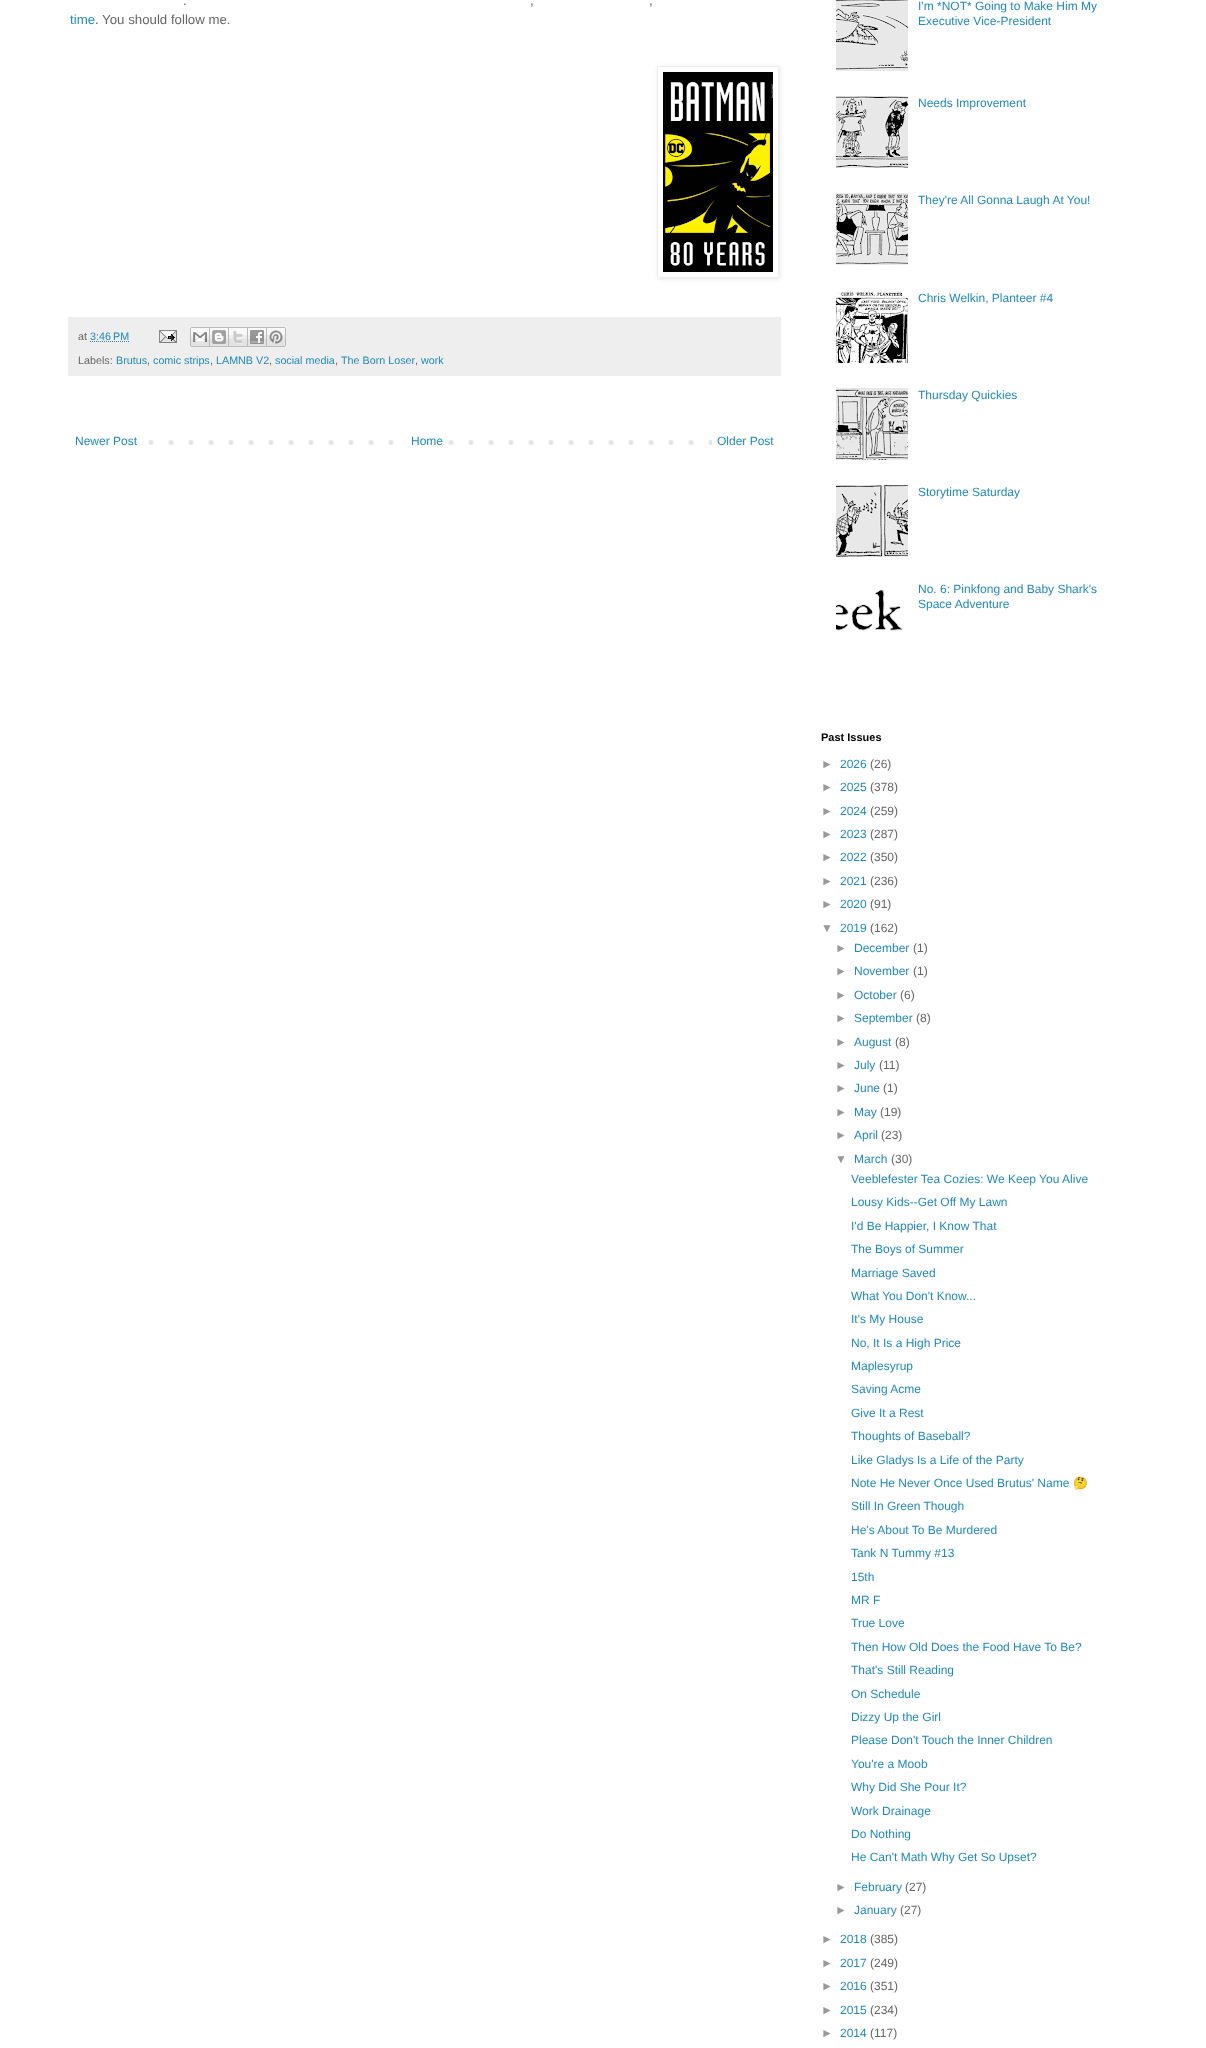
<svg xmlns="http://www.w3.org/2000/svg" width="1206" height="2048">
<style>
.a{font:13.25px Liberation Sans;fill:#666}
.b{font:13.25px Liberation Sans;fill:#28b}
.c{font:10.75px Liberation Sans;fill:#666}
.d{font:10.75px Liberation Sans;fill:#28b}
.e{font:12px Liberation Sans;fill:#28b}
.f{font:bold 11px Liberation Sans;fill:#000}
.g{font:12px Liberation Sans;fill:#999}
.h{font:12px Liberation Sans;fill:#666}
.i{font:12px Noto Color Emoji;fill:#28b}
</style>
<defs>
<clipPath id="clip1"><path d="M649 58h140v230h-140zm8 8h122v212h-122z" clip-rule="evenodd"/></clipPath>
</defs>
<rect width="100%" height="100%" fill="#fff"/>
<g clip-path="url(#clip1)">
<path fill="#0000001a" filter="blur(2.5px)" d="M658 67h122v212H658z"/>
</g>
<path fill="none" stroke="#eee" d="M657.5 66.5h121v211H657.5z"/>
<image href="1.png" x="663" y="72" width="110" height="200"/>
<path fill="#eee" d="M68 317h713v59H68z"/>
<path fill="none" stroke="#28b" stroke-dasharray="1 1" d="M90 341.5h39.5"/>
<image href="2.png" x="159" y="330" width="18" height="13"/>
<image href="3.png" x="190" y="327" width="20" height="20"/>
<image href="4.png" x="210" y="327" width="19" height="20"/>
<image href="5.png" x="229" y="327" width="19" height="20"/>
<image href="6.png" x="248" y="327" width="19" height="20"/>
<image href="7.png" x="267" y="327" width="19" height="20"/>
<image href="8.png" x="148" y="440" width="564" height="5"/>
<path fill="#fff" d="M408 440h26v5H408z"/>
<image href="9.png" x="836" y="0" width="72" height="71"/>
<image href="10.png" x="836" y="96" width="72" height="72"/>
<image href="11.png" x="836" y="193" width="72" height="72"/>
<image href="12.png" x="836" y="291" width="72" height="72"/>
<image href="13.png" x="836" y="388" width="72" height="72"/>
<image href="14.png" x="836" y="485" width="72" height="72"/>
<image href="15.png" x="836" y="590" width="67" height="41"/>
<text class="a" x="183" y="5">.</text>
<text class="a" x="530" y="5">,</text>
<text class="a" x="649" y="5">,</text>
<text class="b" x="70" y="24">time</text>
<text class="a" x="95" y="24">. You should follow me.</text>
<text class="c" x="78" y="340">at</text>
<text class="d" x="90" y="340">3:46 PM</text>
<text class="c" x="78" y="364">Labels:</text>
<text class="d" x="116" y="364">Brutus</text>
<text class="c" x="147" y="364">,</text>
<text class="d" x="153" y="364">comic strips</text>
<text class="c" x="210" y="364">,</text>
<text class="d" x="216" y="364">LAMNB V2</text>
<text class="c" x="269" y="364">,</text>
<text class="d" x="275" y="364">social media</text>
<text class="c" x="335" y="364">,</text>
<text class="d" x="341" y="364">The Born Loser</text>
<text class="c" x="415" y="364">,</text>
<text class="d" x="421" y="364">work</text>
<text class="e" x="75" y="445">Newer Post</text>
<text class="e" x="411" y="445">Home</text>
<text class="e" x="717" y="445">Older Post</text>
<text class="e" x="918" y="10">I'm *NOT* Going to Make Him My</text>
<text class="e" x="918" y="25">Executive Vice-President</text>
<text class="e" x="918" y="107">Needs Improvement</text>
<text class="e" x="918" y="204">They're All Gonna Laugh At You!</text>
<text class="e" x="918" y="302">Chris Welkin, Planteer #4</text>
<text class="e" x="918" y="399">Thursday Quickies</text>
<text class="e" x="918" y="496">Storytime Saturday</text>
<text class="e" x="918" y="593">No. 6: Pinkfong and Baby Shark's</text>
<text class="e" x="918" y="608">Space Adventure</text>
<text class="f" x="821" y="741">Past Issues</text>
<text class="g" x="821" y="768">►</text>
<text class="e" x="840" y="768">2026</text>
<text class="h" x="870" y="768">(26)</text>
<text class="g" x="821" y="791">►</text>
<text class="e" x="840" y="791">2025</text>
<text class="h" x="870" y="791">(378)</text>
<text class="g" x="821" y="815">►</text>
<text class="e" x="840" y="815">2024</text>
<text class="h" x="870" y="815">(259)</text>
<text class="g" x="821" y="838">►</text>
<text class="e" x="840" y="838">2023</text>
<text class="h" x="870" y="838">(287)</text>
<text class="g" x="821" y="861">►</text>
<text class="e" x="840" y="861">2022</text>
<text class="h" x="870" y="861">(350)</text>
<text class="g" x="821" y="885">►</text>
<text class="e" x="840" y="885">2021</text>
<text class="h" x="870" y="885">(236)</text>
<text class="g" x="821" y="908">►</text>
<text class="e" x="840" y="908">2020</text>
<text class="h" x="870" y="908">(91)</text>
<text class="g" x="821" y="932">▼</text>
<text class="e" x="840" y="932">2019</text>
<text class="h" x="870" y="932">(162)</text>
<text class="g" x="835" y="952">►</text>
<text class="e" x="854" y="952">December</text>
<text class="h" x="913" y="952">(1)</text>
<text class="g" x="835" y="975">►</text>
<text class="e" x="854" y="975">November</text>
<text class="h" x="913" y="975">(1)</text>
<text class="g" x="835" y="999">►</text>
<text class="e" x="854" y="999">October</text>
<text class="h" x="900" y="999">(6)</text>
<text class="g" x="835" y="1022">►</text>
<text class="e" x="854" y="1022">September</text>
<text class="h" x="916" y="1022">(8)</text>
<text class="g" x="835" y="1046">►</text>
<text class="e" x="854" y="1046">August</text>
<text class="h" x="895" y="1046">(8)</text>
<text class="g" x="835" y="1069">►</text>
<text class="e" x="854" y="1069">July</text>
<text class="h" x="879" y="1069">(11)</text>
<text class="g" x="835" y="1092">►</text>
<text class="e" x="854" y="1092">June</text>
<text class="h" x="883" y="1092">(1)</text>
<text class="g" x="835" y="1116">►</text>
<text class="e" x="854" y="1116">May</text>
<text class="h" x="880" y="1116">(19)</text>
<text class="g" x="835" y="1139">►</text>
<text class="e" x="854" y="1139">April</text>
<text class="h" x="881" y="1139">(23)</text>
<text class="g" x="835" y="1163">▼</text>
<text class="e" x="854" y="1163">March</text>
<text class="h" x="891" y="1163">(30)</text>
<text class="e" x="851" y="1183">Veeblefester Tea Cozies: We Keep You Alive</text>
<text class="e" x="851" y="1206">Lousy Kids--Get Off My Lawn</text>
<text class="e" x="851" y="1230">I'd Be Happier, I Know That</text>
<text class="e" x="851" y="1253">The Boys of Summer</text>
<text class="e" x="851" y="1277">Marriage Saved</text>
<text class="e" x="851" y="1300">What You Don't Know...</text>
<text class="e" x="851" y="1323">It's My House</text>
<text class="e" x="851" y="1347">No, It Is a High Price</text>
<text class="e" x="851" y="1370">Maplesyrup</text>
<text class="e" x="851" y="1393">Saving Acme</text>
<text class="e" x="851" y="1417">Give It a Rest</text>
<text class="e" x="851" y="1440">Thoughts of Baseball?</text>
<text class="e" x="851" y="1464">Like Gladys Is a Life of the Party</text>
<text class="e" x="851" y="1487">Note He Never Once Used Brutus' Name</text>
<text class="i" x="1073" y="1487">🤔</text>
<text class="e" x="851" y="1510">Still In Green Though</text>
<text class="e" x="851" y="1534">He's About To Be Murdered</text>
<text class="e" x="851" y="1557">Tank N Tummy #13</text>
<text class="e" x="851" y="1581">15th</text>
<text class="e" x="851" y="1604">MR F</text>
<text class="e" x="851" y="1627">True Love</text>
<text class="e" x="851" y="1651">Then How Old Does the Food Have To Be?</text>
<text class="e" x="851" y="1674">That's Still Reading</text>
<text class="e" x="851" y="1698">On Schedule</text>
<text class="e" x="851" y="1721">Dizzy Up the Girl</text>
<text class="e" x="851" y="1744">Please Don't Touch the Inner Children</text>
<text class="e" x="851" y="1768">You're a Moob</text>
<text class="e" x="851" y="1791">Why Did She Pour It?</text>
<text class="e" x="851" y="1815">Work Drainage</text>
<text class="e" x="851" y="1838">Do Nothing</text>
<text class="e" x="851" y="1861">He Can't Math Why Get So Upset?</text>
<text class="g" x="835" y="1891">►</text>
<text class="e" x="854" y="1891">February</text>
<text class="h" x="905" y="1891">(27)</text>
<text class="g" x="835" y="1914">►</text>
<text class="e" x="854" y="1914">January</text>
<text class="h" x="900" y="1914">(27)</text>
<text class="g" x="821" y="1943">►</text>
<text class="e" x="840" y="1943">2018</text>
<text class="h" x="870" y="1943">(385)</text>
<text class="g" x="821" y="1967">►</text>
<text class="e" x="840" y="1967">2017</text>
<text class="h" x="870" y="1967">(249)</text>
<text class="g" x="821" y="1990">►</text>
<text class="e" x="840" y="1990">2016</text>
<text class="h" x="870" y="1990">(351)</text>
<text class="g" x="821" y="2014">►</text>
<text class="e" x="840" y="2014">2015</text>
<text class="h" x="870" y="2014">(234)</text>
<text class="g" x="821" y="2037">►</text>
<text class="e" x="840" y="2037">2014</text>
<text class="h" x="870" y="2037">(117)</text>
</svg>
